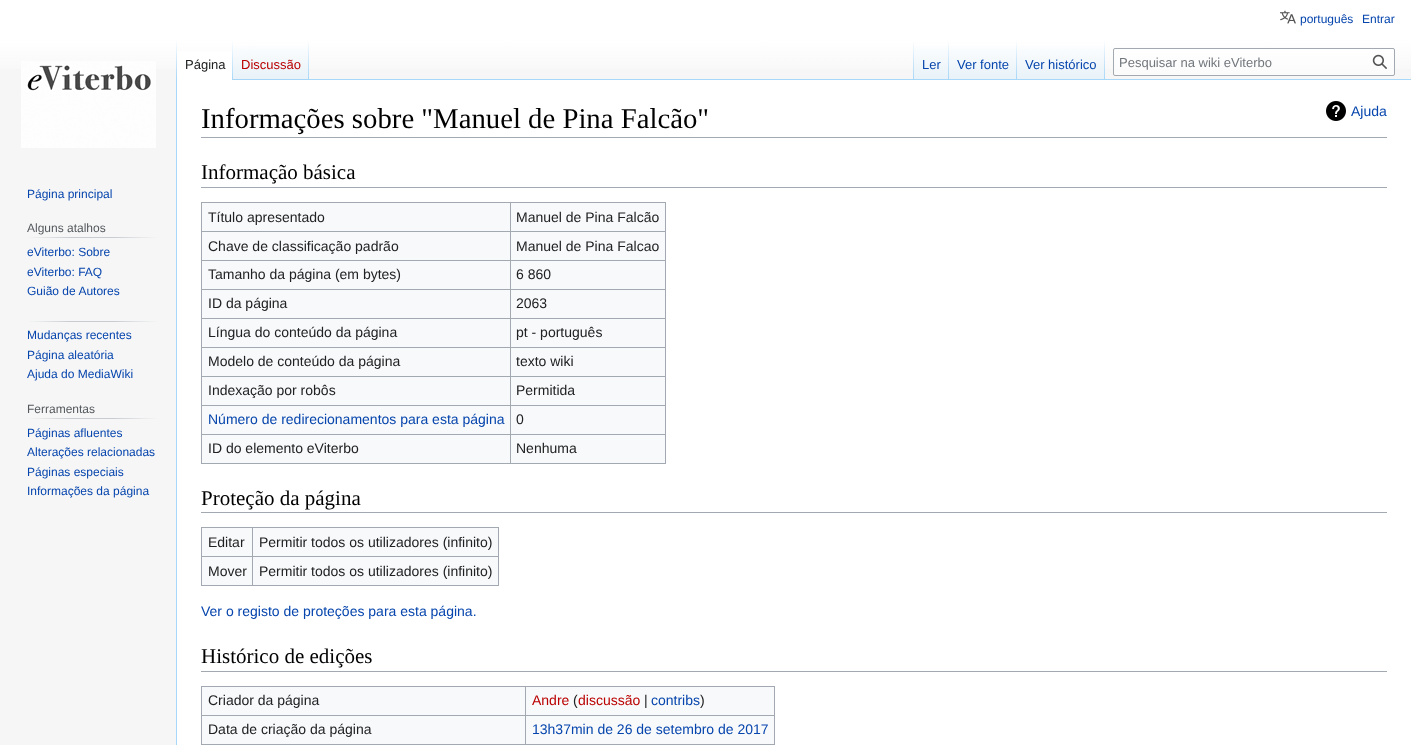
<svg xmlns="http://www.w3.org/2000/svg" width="1411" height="745">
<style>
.a{font:12px Liberation Sans;fill:#0645ad}
.b{font:13px Liberation Sans;fill:#202122}
.c{font:13px Liberation Sans;fill:#ba0000}
.d{font:13px Liberation Sans;fill:#0645ad}
.e{font:13px Liberation Sans;fill:#72777d}
.f{font:12px Liberation Sans;fill:#54595d}
.g{font:28.75px Liberation Serif;fill:#000}
.h{font:14px Liberation Sans;fill:#0645ad}
.i{font:21px Liberation Serif;fill:#000}
.j{font:14px Liberation Sans;fill:#202122}
.k{font:14px Liberation Sans;fill:#ba0000}
</style>
<defs>
<linearGradient id="g1" gradientUnits="userSpaceOnUse" x1="706" y1="0" x2="706" y2="80"><stop offset="0.5" stop-color="#fff"/><stop offset="1" stop-color="#f6f6f6"/></linearGradient>
<linearGradient id="g2" gradientUnits="userSpaceOnUse" x1="177" y1="40" x2="177" y2="80"><stop offset="0" stop-color="#a7d7f9" stop-opacity="0"/><stop offset="1" stop-color="#a7d7f9"/></linearGradient>
<linearGradient id="g3" gradientUnits="userSpaceOnUse" x1="233" y1="40" x2="233" y2="80"><stop offset="0" stop-color="#fff"/><stop offset="1" stop-color="#a7d7f9"/></linearGradient>
<linearGradient id="g4" gradientUnits="userSpaceOnUse" x1="271" y1="80" x2="271" y2="40"><stop offset="0" stop-color="#77c1f6"/><stop offset="0.03" stop-color="#e8f2f8"/><stop offset="1" stop-color="#fff"/></linearGradient>
<linearGradient id="g5" gradientUnits="userSpaceOnUse" x1="309" y1="40" x2="309" y2="80"><stop offset="0" stop-color="#a7d7f9" stop-opacity="0"/><stop offset="1" stop-color="#a7d7f9"/></linearGradient>
<linearGradient id="g6" gradientUnits="userSpaceOnUse" x1="914" y1="40" x2="914" y2="80"><stop offset="0" stop-color="#a7d7f9" stop-opacity="0"/><stop offset="1" stop-color="#a7d7f9"/></linearGradient>
<linearGradient id="g7" gradientUnits="userSpaceOnUse" x1="932" y1="80" x2="932" y2="40"><stop offset="0" stop-color="#77c1f6"/><stop offset="0.03" stop-color="#e8f2f8"/><stop offset="1" stop-color="#fff"/></linearGradient>
<linearGradient id="g8" gradientUnits="userSpaceOnUse" x1="949" y1="40" x2="949" y2="80"><stop offset="0" stop-color="#a7d7f9" stop-opacity="0"/><stop offset="1" stop-color="#a7d7f9"/></linearGradient>
<linearGradient id="g9" gradientUnits="userSpaceOnUse" x1="983" y1="80" x2="983" y2="40"><stop offset="0" stop-color="#77c1f6"/><stop offset="0.03" stop-color="#e8f2f8"/><stop offset="1" stop-color="#fff"/></linearGradient>
<linearGradient id="g10" gradientUnits="userSpaceOnUse" x1="1017" y1="40" x2="1017" y2="80"><stop offset="0" stop-color="#a7d7f9" stop-opacity="0"/><stop offset="1" stop-color="#a7d7f9"/></linearGradient>
<linearGradient id="g11" gradientUnits="userSpaceOnUse" x1="1061" y1="80" x2="1061" y2="40"><stop offset="0" stop-color="#77c1f6"/><stop offset="0.03" stop-color="#e8f2f8"/><stop offset="1" stop-color="#fff"/></linearGradient>
<linearGradient id="g12" gradientUnits="userSpaceOnUse" x1="1105" y1="40" x2="1105" y2="80"><stop offset="0" stop-color="#a7d7f9" stop-opacity="0"/><stop offset="1" stop-color="#a7d7f9"/></linearGradient>
<linearGradient id="g13" gradientUnits="userSpaceOnUse" x1="27" y1="238" x2="158" y2="238"><stop offset="0" stop-color="#f6f6f6"/><stop offset="0.33" stop-color="#c8ccd1"/><stop offset="0.66" stop-color="#c8ccd1"/><stop offset="1" stop-color="#f6f6f6"/></linearGradient>
<linearGradient id="g14" gradientUnits="userSpaceOnUse" x1="27" y1="322" x2="158" y2="322"><stop offset="0" stop-color="#f6f6f6"/><stop offset="0.33" stop-color="#c8ccd1"/><stop offset="0.66" stop-color="#c8ccd1"/><stop offset="1" stop-color="#f6f6f6"/></linearGradient>
<linearGradient id="g15" gradientUnits="userSpaceOnUse" x1="27" y1="419" x2="158" y2="419"><stop offset="0" stop-color="#f6f6f6"/><stop offset="0.33" stop-color="#c8ccd1"/><stop offset="0.66" stop-color="#c8ccd1"/><stop offset="1" stop-color="#f6f6f6"/></linearGradient>
</defs>
<rect width="100%" height="100%" fill="#f6f6f6"/>
<path fill="url(#g1)" d="M0 0h1411v69H0z"/>
<image href="1.png" x="1280" y="10" width="16" height="14"/>
<path fill="#a7d7f9" d="M176 79h1v666H176z"/>
<path fill="url(#g2)" d="M176 40h1v40H176z"/>
<path fill="#fff" d="M177 51h55v29H177z"/>
<path fill="url(#g3)" d="M232 40h1v40H232z"/>
<path fill="url(#g4)" d="M233 46h76v34H233z"/>
<path fill="url(#g5)" d="M308 40h1v40H308z"/>
<path fill="#a7d7f9" d="M309 79h1102v1H309z"/>
<path fill="url(#g6)" d="M913 40h1v40H913z"/>
<path fill="url(#g7)" d="M914 46h35v33H914z"/>
<path fill="url(#g8)" d="M948 40h1v40H948z"/>
<path fill="url(#g9)" d="M949 46h68v33H949z"/>
<path fill="url(#g10)" d="M1016 40h1v40H1016z"/>
<path fill="url(#g11)" d="M1017 46h88v33H1017z"/>
<path fill="url(#g12)" d="M1104 40h1v40H1104z"/>
<rect fill="#ffffff80" stroke="#a2a9b1" x="1113.5" y="48.5" width="281" height="27" rx="1.5"/>
<image href="2.png" x="1372" y="54" width="15" height="15"/>
<image href="3.png" x="21" y="61" width="135" height="87"/>
<path fill="url(#g13)" d="M27 237h131v1H27z"/>
<path fill="url(#g14)" d="M27 321h131v1H27z"/>
<path fill="url(#g15)" d="M27 418h131v1H27z"/>
<path fill="#fff" d="M177 80h1234v665H177z"/>
<path fill="#a2a9b1" d="M201 137h1186v1H201z"/>
<image href="4.png" x="1326" y="101" width="20" height="20"/>
<path fill="#a2a9b1" d="M201 187h1186v1H201z"/>
<path fill="#f8f9fa" d="M202 203h463v260H202z"/>
<path fill="#a2a9b1" d="M201 202h465v1H201z"/>
<path fill="#a2a9b1" d="M665 202h1v262H665z"/>
<path fill="#a2a9b1" d="M201 463h465v1H201z"/>
<path fill="#a2a9b1" d="M201 202h1v262H201z"/>
<path fill="#a2a9b1" d="M510 231h156v1H510z"/>
<path fill="#a2a9b1" d="M510 260h156v1H510z"/>
<path fill="#a2a9b1" d="M510 289h156v1H510z"/>
<path fill="#a2a9b1" d="M510 318h156v1H510z"/>
<path fill="#a2a9b1" d="M510 347h156v1H510z"/>
<path fill="#a2a9b1" d="M510 376h156v1H510z"/>
<path fill="#a2a9b1" d="M510 405h156v1H510z"/>
<path fill="#a2a9b1" d="M510 434h156v1H510z"/>
<path fill="#a2a9b1" d="M510 434h1v30H510z"/>
<path fill="#a2a9b1" d="M201 434h310v1H201z"/>
<path fill="#a2a9b1" d="M510 405h1v30H510z"/>
<path fill="#a2a9b1" d="M201 405h310v1H201z"/>
<path fill="#a2a9b1" d="M510 376h1v30H510z"/>
<path fill="#a2a9b1" d="M201 376h310v1H201z"/>
<path fill="#a2a9b1" d="M510 347h1v30H510z"/>
<path fill="#a2a9b1" d="M201 347h310v1H201z"/>
<path fill="#a2a9b1" d="M510 318h1v30H510z"/>
<path fill="#a2a9b1" d="M201 318h310v1H201z"/>
<path fill="#a2a9b1" d="M510 289h1v30H510z"/>
<path fill="#a2a9b1" d="M201 289h310v1H201z"/>
<path fill="#a2a9b1" d="M510 260h1v30H510z"/>
<path fill="#a2a9b1" d="M201 260h310v1H201z"/>
<path fill="#a2a9b1" d="M510 231h1v30H510z"/>
<path fill="#a2a9b1" d="M201 231h310v1H201z"/>
<path fill="#a2a9b1" d="M510 202h1v30H510z"/>
<path fill="#a2a9b1" d="M201 512h1186v1H201z"/>
<path fill="#f8f9fa" d="M202 528h296v57H202z"/>
<path fill="#a2a9b1" d="M201 527h298v1H201z"/>
<path fill="#a2a9b1" d="M498 527h1v59H498z"/>
<path fill="#a2a9b1" d="M201 585h298v1H201z"/>
<path fill="#a2a9b1" d="M201 527h1v59H201z"/>
<path fill="#a2a9b1" d="M252 556h247v1H252z"/>
<path fill="#a2a9b1" d="M252 556h1v30H252z"/>
<path fill="#a2a9b1" d="M201 556h52v1H201z"/>
<path fill="#a2a9b1" d="M252 527h1v30H252z"/>
<path fill="#a2a9b1" d="M201 671h1186v1H201z"/>
<path fill="#f8f9fa" d="M202 687h572v57H202z"/>
<path fill="#a2a9b1" d="M201 686h574v1H201z"/>
<path fill="#a2a9b1" d="M774 686h1v59H774z"/>
<path fill="#a2a9b1" d="M201 686h1v59H201z"/>
<path fill="#a2a9b1" d="M525 715h250v1H525z"/>
<path fill="#a2a9b1" d="M201 744h574v1H201z"/>
<path fill="#a2a9b1" d="M525 715h1v30H525z"/>
<path fill="#a2a9b1" d="M201 715h325v1H201z"/>
<path fill="#a2a9b1" d="M525 686h1v30H525z"/>
<text class="a" x="1300" y="23">português</text>
<text class="a" x="1362" y="23">Entrar</text>
<text class="b" x="185" y="69">Página</text>
<text class="c" x="241" y="69">Discussão</text>
<text class="d" x="922" y="69">Ler</text>
<text class="d" x="957" y="69">Ver fonte</text>
<text class="d" x="1025" y="69">Ver histórico</text>
<text class="e" x="1119" y="67">Pesquisar na wiki eViterbo</text>
<text class="a" x="27" y="198">Página principal</text>
<text class="f" x="27" y="232">Alguns atalhos</text>
<text class="a" x="27" y="256">eViterbo: Sobre</text>
<text class="a" x="27" y="276">eViterbo: FAQ</text>
<text class="a" x="27" y="295">Guião de Autores</text>
<text class="a" x="27" y="339">Mudanças recentes</text>
<text class="a" x="27" y="359">Página aleatória</text>
<text class="a" x="27" y="378">Ajuda do MediaWiki</text>
<text class="f" x="27" y="413">Ferramentas</text>
<text class="a" x="27" y="437">Páginas afluentes</text>
<text class="a" x="27" y="456">Alterações relacionadas</text>
<text class="a" x="27" y="476">Páginas especiais</text>
<text class="a" x="27" y="495">Informações da página</text>
<text class="g" x="201" y="128">Informações sobre "Manuel de Pina Falcão"</text>
<text class="h" x="1351" y="116">Ajuda</text>
<text class="i" x="201" y="179">Informação básica</text>
<text class="j" x="208" y="222">Título apresentado</text>
<text class="j" x="516" y="222">Manuel de Pina Falcão</text>
<text class="j" x="208" y="251">Chave de classificação padrão</text>
<text class="j" x="516" y="251">Manuel de Pina Falcao</text>
<text class="j" x="208" y="279">Tamanho da página (em bytes)</text>
<text class="j" x="516" y="279">6 860</text>
<text class="j" x="208" y="308">ID da página</text>
<text class="j" x="516" y="308">2063</text>
<text class="j" x="208" y="337">Língua do conteúdo da página</text>
<text class="j" x="516" y="337">pt - português</text>
<text class="j" x="208" y="366">Modelo de conteúdo da página</text>
<text class="j" x="516" y="366">texto wiki</text>
<text class="j" x="208" y="395">Indexação por robôs</text>
<text class="j" x="516" y="395">Permitida</text>
<text class="h" x="208" y="424">Número de redirecionamentos para esta página</text>
<text class="j" x="516" y="424">0</text>
<text class="j" x="208" y="453">ID do elemento eViterbo</text>
<text class="j" x="516" y="453">Nenhuma</text>
<text class="i" x="201" y="505">Proteção da página</text>
<text class="j" x="208" y="547">Editar</text>
<text class="j" x="259" y="547">Permitir todos os utilizadores (infinito)</text>
<text class="j" x="208" y="576">Mover</text>
<text class="j" x="259" y="576">Permitir todos os utilizadores (infinito)</text>
<text class="h" x="201" y="616">Ver o registo de proteções para esta página.</text>
<text class="i" x="201" y="663">Histórico de edições</text>
<text class="j" x="208" y="705">Criador da página</text>
<text class="k" x="532" y="705">Andre</text>
<text class="j" x="573" y="705">(</text>
<text class="k" x="578" y="705">discussão</text>
<text class="j" x="644" y="705">|</text>
<text class="h" x="651" y="705">contribs</text>
<text class="j" x="700" y="705">)</text>
<text class="j" x="208" y="734">Data de criação da página</text>
<text class="h" x="532" y="734">13h37min de 26 de setembro de 2017</text>
</svg>
